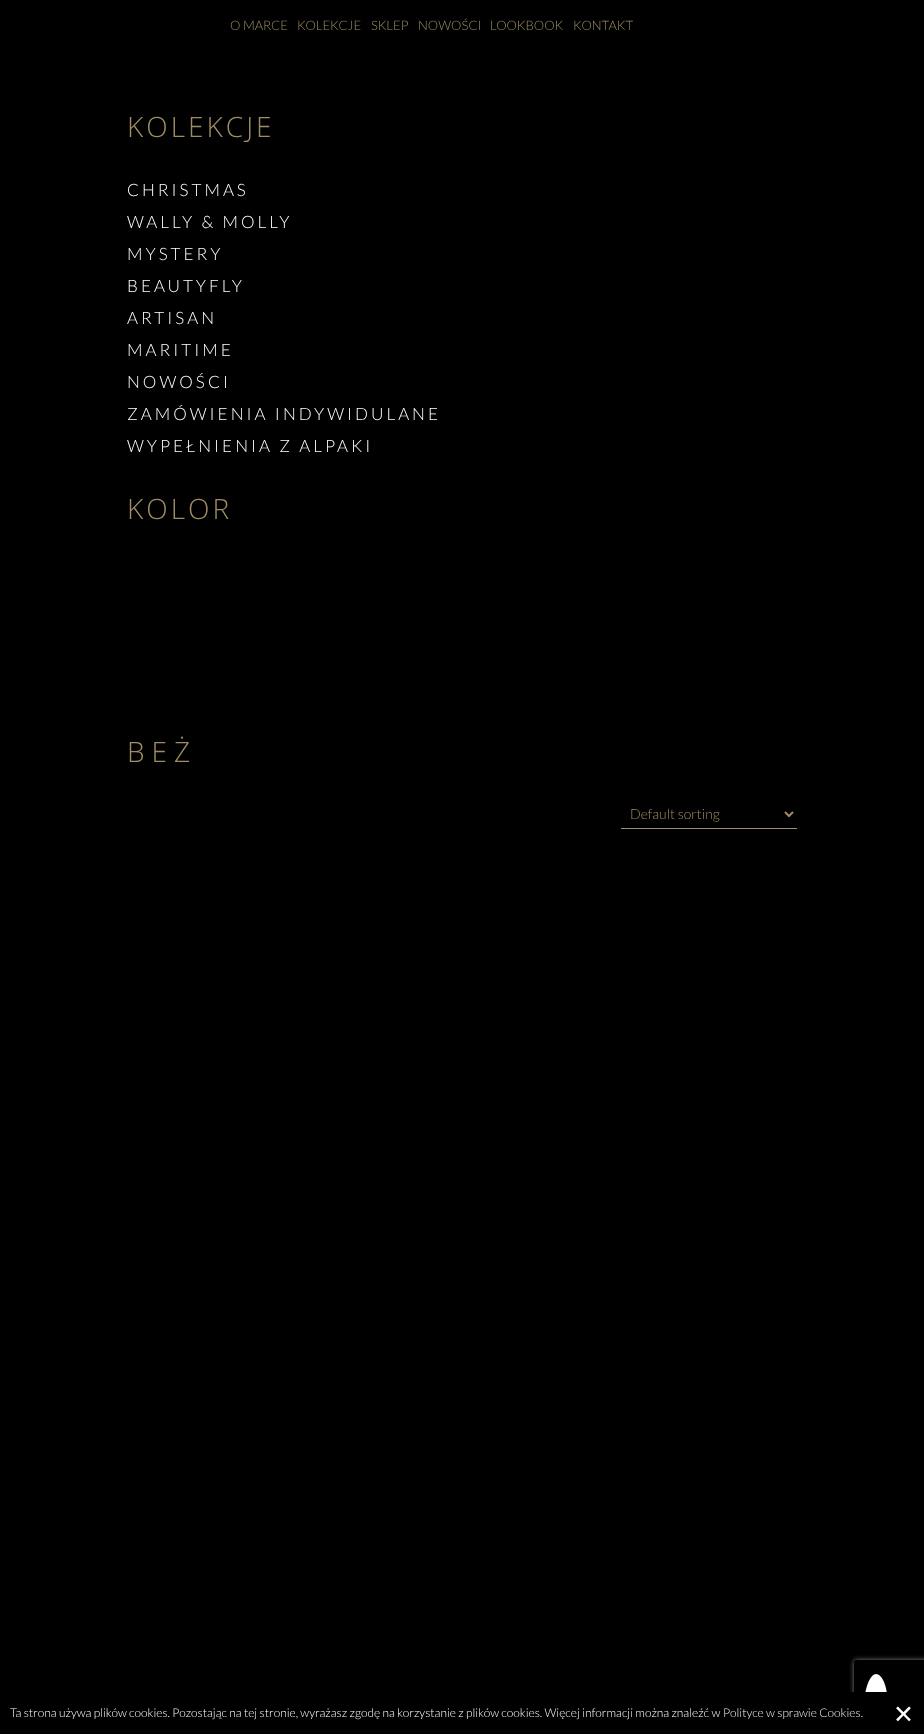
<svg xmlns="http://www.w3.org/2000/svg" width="924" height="1734">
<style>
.a{font:300 13px Lato;fill:#9f8e63}
.b{font:300 28px Open Sans;letter-spacing:3px;fill:#9f8e63}
.c{font:300 17px Lato;letter-spacing:3px;fill:#fff}
.d{font:300 28px Open Sans;letter-spacing:7px;fill:#9f8e63}
.e{font:300 14px Lato;fill:#9f8e63}
.f{font:300 12px Lato;fill:#fff}
.g{font:300 12px Lato;fill:#f1f1f1}
.h{font:25px DejaVu Sans;fill:#fff}
</style>
<defs>
<clipPath id="clip1"><path d="M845 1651h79v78h-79zm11 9h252c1 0 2 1 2 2v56c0 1-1 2-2 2h-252c-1 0-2-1-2-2v-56c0-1 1-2 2-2z" clip-rule="evenodd"/></clipPath>
</defs>
<rect width="100%" height="100%" fill="#000"/>
<path fill="#9f8e63" d="M621 828h176v1H621z"/>
<path fill="none" stroke="#9f8e63" stroke-width="2" d="M785 812l4 4l4-4"/>
<g clip-path="url(#clip1)">
<rect fill="#808080" filter="blur(2.5px)" x="854" y="1660" width="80" height="60" rx="2"/>
</g>
<path fill="#fff" d="M888 1707c0 18-5 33-12 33c-6 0-12-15-12-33c0-18 6-33 12-33c7 0 12 15 12 33z"/>
<path fill="#000" d="M849 1692h75v42H849z"/>
<text class="a" x="230" y="30">O MARCE</text>
<text class="a" x="297" y="30">KOLEKCJE</text>
<text class="a" x="371" y="30">SKLEP</text>
<text class="a" x="418" y="30">NOWOŚCI</text>
<text class="a" x="490" y="30">LOOKBOOK</text>
<text class="a" x="573" y="30">KONTAKT</text>
<text class="b" x="127" y="137">KOLEKCJE</text>
<text class="c" x="127" y="196">CHRISTMAS</text>
<text class="c" x="127" y="228">WALLY &amp; MOLLY</text>
<text class="c" x="127" y="260">MYSTERY</text>
<text class="c" x="127" y="292">BEAUTYFLY</text>
<text class="c" x="127" y="324">ARTISAN</text>
<text class="c" x="127" y="356">MARITIME</text>
<text class="c" x="127" y="388">NOWOŚCI</text>
<text class="c" x="127" y="420">ZAMÓWIENIA INDYWIDULANE</text>
<text class="c" x="127" y="452">WYPEŁNIENIA Z ALPAKI</text>
<text class="b" x="127" y="519">KOLOR</text>
<text class="d" x="127" y="762">BEŻ</text>
<text class="e" x="630" y="819">Default sorting</text>
<text class="f" x="10" y="1717">Ta strona używa plików cookies. Pozostając na tej stronie, wyrażasz zgodę na korzystanie z plików cookies. Więcej informacji można znaleźć w</text>
<text class="g" x="723" y="1717">Polityce w sprawie Cookies.</text>
<text class="h" x="893" y="1723">✕</text>
</svg>
